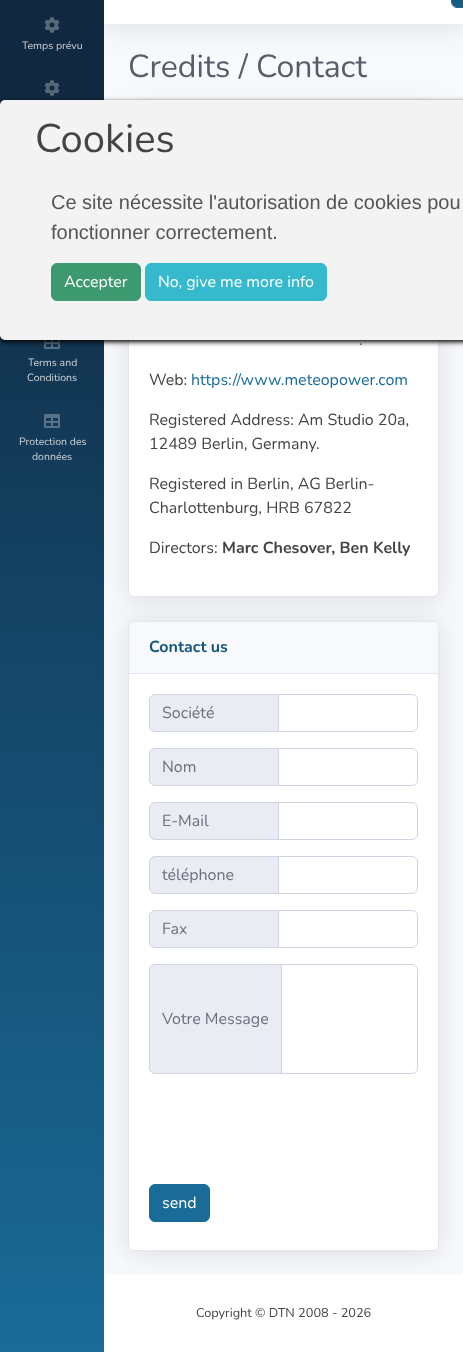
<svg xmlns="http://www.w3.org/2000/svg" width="463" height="1352">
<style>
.a{font:10.5px Nunito;fill:#cfd4d9}
.b{font:32px Nunito;fill:#5a5c69}
.c{font:16px Nunito;fill:#1a6b98}
.d{font:16px Nunito;fill:#444}
.e{font:bold 16px Nunito;fill:#444}
.f{font:bold 16px Nunito;fill:#15557a}
.g{font:16px Nunito;fill:#6e707e}
.h{font:16px Nunito;fill:#fff}
.i{font:12.75px Nunito;fill:#444}
.j{font:40px Nunito;fill:#444}
.k{font:20px Liberation Sans;fill:#555}
</style>
<defs>
<linearGradient id="g1" gradientUnits="userSpaceOnUse" x1="52" y1="-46" x2="52" y2="1352"><stop offset="0.1" stop-color="#102840"/><stop offset="1" stop-color="#1a6b98"/></linearGradient>
<clipPath id="clip1"><path d="M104 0h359v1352H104z"/></clipPath>
</defs>
<rect width="100%" height="100%" fill="#fff"/>
<path fill="url(#g1)" d="M0 0h104v1352H0z"/>
<image href="1.png" x="44" y="17" width="16" height="16"/>
<image href="1.png" x="44" y="80" width="16" height="16"/>
<image href="2.png" x="44" y="340" width="16" height="9"/>
<image href="3.png" x="44" y="414" width="16" height="14"/>
<path fill="#f8f9fc" d="M104 24h359v1251H104z"/>
<g clip-path="url(#clip1)">
<path fill="#3a3b4526" filter="blur(14px)" d="M104 -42h359v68H104z"/>
</g>
<path fill="#fff" d="M104 0h359v24H104z"/>
<rect fill="none" stroke="#1a6b98" x="451.5" y="-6.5" width="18" height="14" rx="5.5"/>
<path fill="#165b81" d="M457-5h6v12h-6c-3 0-5-2-5-5v-2c0-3 2-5 5-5z"/>
<rect fill="#3a3b4526" filter="blur(14px)" x="128" y="112" width="311" height="487" rx="6"/>
<rect fill="#fff" stroke="#e3e6f0" x="128.5" y="110.5" width="310" height="486" rx="5.5"/>
<rect fill="#3a3b4526" filter="blur(14px)" x="128" y="623" width="311" height="630" rx="6"/>
<rect fill="#fff" stroke="#e3e6f0" x="128.5" y="621.5" width="310" height="629" rx="5.5"/>
<path fill="#f8f9fc" d="M134 622h299c3 0 5 2 5 5v47h-309v-47c0-3 2-5 5-5z"/>
<path fill="#e3e6f0" d="M129 673h309v1H129z"/>
<path fill="#eaecf4" stroke="#d1d3e2" d="M155 694.5h123.5v37h-123.5c-3 0-5.5-2.5-5.5-5.5v-26c0-3 2.5-5.5 5.5-5.5z"/>
<path fill="none" stroke="#d1d3e2" d="M278.5 694.5h133.5c3 0 5.5 2.5 5.5 5.5v26c0 3-2.5 5.5-5.5 5.5h-133.5z"/>
<path fill="#eaecf4" stroke="#d1d3e2" d="M155 748.5h123.5v37h-123.5c-3 0-5.5-2.5-5.5-5.5v-26c0-3 2.5-5.5 5.5-5.5z"/>
<path fill="none" stroke="#d1d3e2" d="M278.5 748.5h133.5c3 0 5.5 2.5 5.5 5.5v26c0 3-2.5 5.5-5.5 5.5h-133.5z"/>
<path fill="#eaecf4" stroke="#d1d3e2" d="M155 802.5h123.5v37h-123.5c-3 0-5.5-2.5-5.5-5.5v-26c0-3 2.5-5.5 5.5-5.5z"/>
<path fill="none" stroke="#d1d3e2" d="M278.5 802.5h133.5c3 0 5.5 2.5 5.5 5.5v26c0 3-2.5 5.5-5.5 5.5h-133.5z"/>
<path fill="#eaecf4" stroke="#d1d3e2" d="M155 856.5h123.5v37h-123.5c-3 0-5.5-2.5-5.5-5.5v-26c0-3 2.5-5.5 5.5-5.5z"/>
<path fill="none" stroke="#d1d3e2" d="M278.5 856.5h133.5c3 0 5.5 2.5 5.5 5.5v26c0 3-2.5 5.5-5.5 5.5h-133.5z"/>
<path fill="#eaecf4" stroke="#d1d3e2" d="M155 910.5h123.5v37h-123.5c-3 0-5.5-2.5-5.5-5.5v-26c0-3 2.5-5.5 5.5-5.5z"/>
<path fill="none" stroke="#d1d3e2" d="M278.5 910.5h133.5c3 0 5.5 2.5 5.5 5.5v26c0 3-2.5 5.5-5.5 5.5h-133.5z"/>
<path fill="#eaecf4" stroke="#d1d3e2" d="M155 964.5h126.5v109h-126.5c-3 0-5.5-2.5-5.5-5.5v-98c0-3 2.5-5.5 5.5-5.5z"/>
<path fill="none" stroke="#d1d3e2" d="M281.5 964.5h130.5c3 0 5.5 2.5 5.5 5.5v98c0 3-2.5 5.5-5.5 5.5h-130.5z"/>
<rect fill="#1a6b98" stroke="#1a6b98" x="149.5" y="1184.5" width="60" height="37" rx="5.5"/>
<rect fill="#000" filter="blur(2.5px)" y="102" width="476" height="240" rx="5"/>
<rect fill="#f3f3f3" y="100" width="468" height="240" rx="5"/>
<rect fill="#3d9970" stroke="#3d9970" x="51.5" y="263.5" width="89" height="37" rx="5.5"/>
<rect fill="#36b9cc" stroke="#36b9cc" x="145.5" y="263.5" width="181" height="37" rx="5.5"/>
<text class="a" x="22" y="49">Temps prévu</text>
<text class="a" x="28" y="366">Terms and</text>
<text class="a" x="27" y="381">Conditions</text>
<text class="a" x="19" y="445">Protection des</text>
<text class="a" x="32" y="460">données</text>
<text class="b" x="128" y="77">Credits / Contact</text>
<text class="c" x="359" y="345">.</text>
<text class="d" x="149" y="385">Web:</text>
<text class="c" x="191" y="385">https://www.meteopower.com</text>
<text class="d" x="149" y="425">Registered Address: Am Studio 20a,</text>
<text class="d" x="149" y="449">12489 Berlin, Germany.</text>
<text class="d" x="149" y="489">Registered in Berlin, AG Berlin-</text>
<text class="d" x="149" y="513">Charlottenburg, HRB 67822</text>
<text class="d" x="149" y="553">Directors:</text>
<text class="e" x="222" y="553">Marc Chesover, Ben Kelly</text>
<text class="f" x="149" y="652">Contact us</text>
<text class="g" x="162" y="718">Société</text>
<text class="g" x="162" y="772">Nom</text>
<text class="g" x="162" y="826">E-Mail</text>
<text class="g" x="162" y="880">téléphone</text>
<text class="g" x="162" y="934">Fax</text>
<text class="g" x="162" y="1024">Votre Message</text>
<text class="h" x="162" y="1208">send</text>
<text class="i" x="196" y="1317">Copyright © DTN 2008 - 2026</text>
<text class="j" x="35" y="152">Cookies</text>
<text class="k" x="51" y="209">Ce site nécessite l'autorisation de cookies pou</text>
<text class="k" x="51" y="239">fonctionner correctement.</text>
<text class="h" x="64" y="287">Accepter</text>
<text class="h" x="158" y="287">No, give me more info</text>
</svg>
